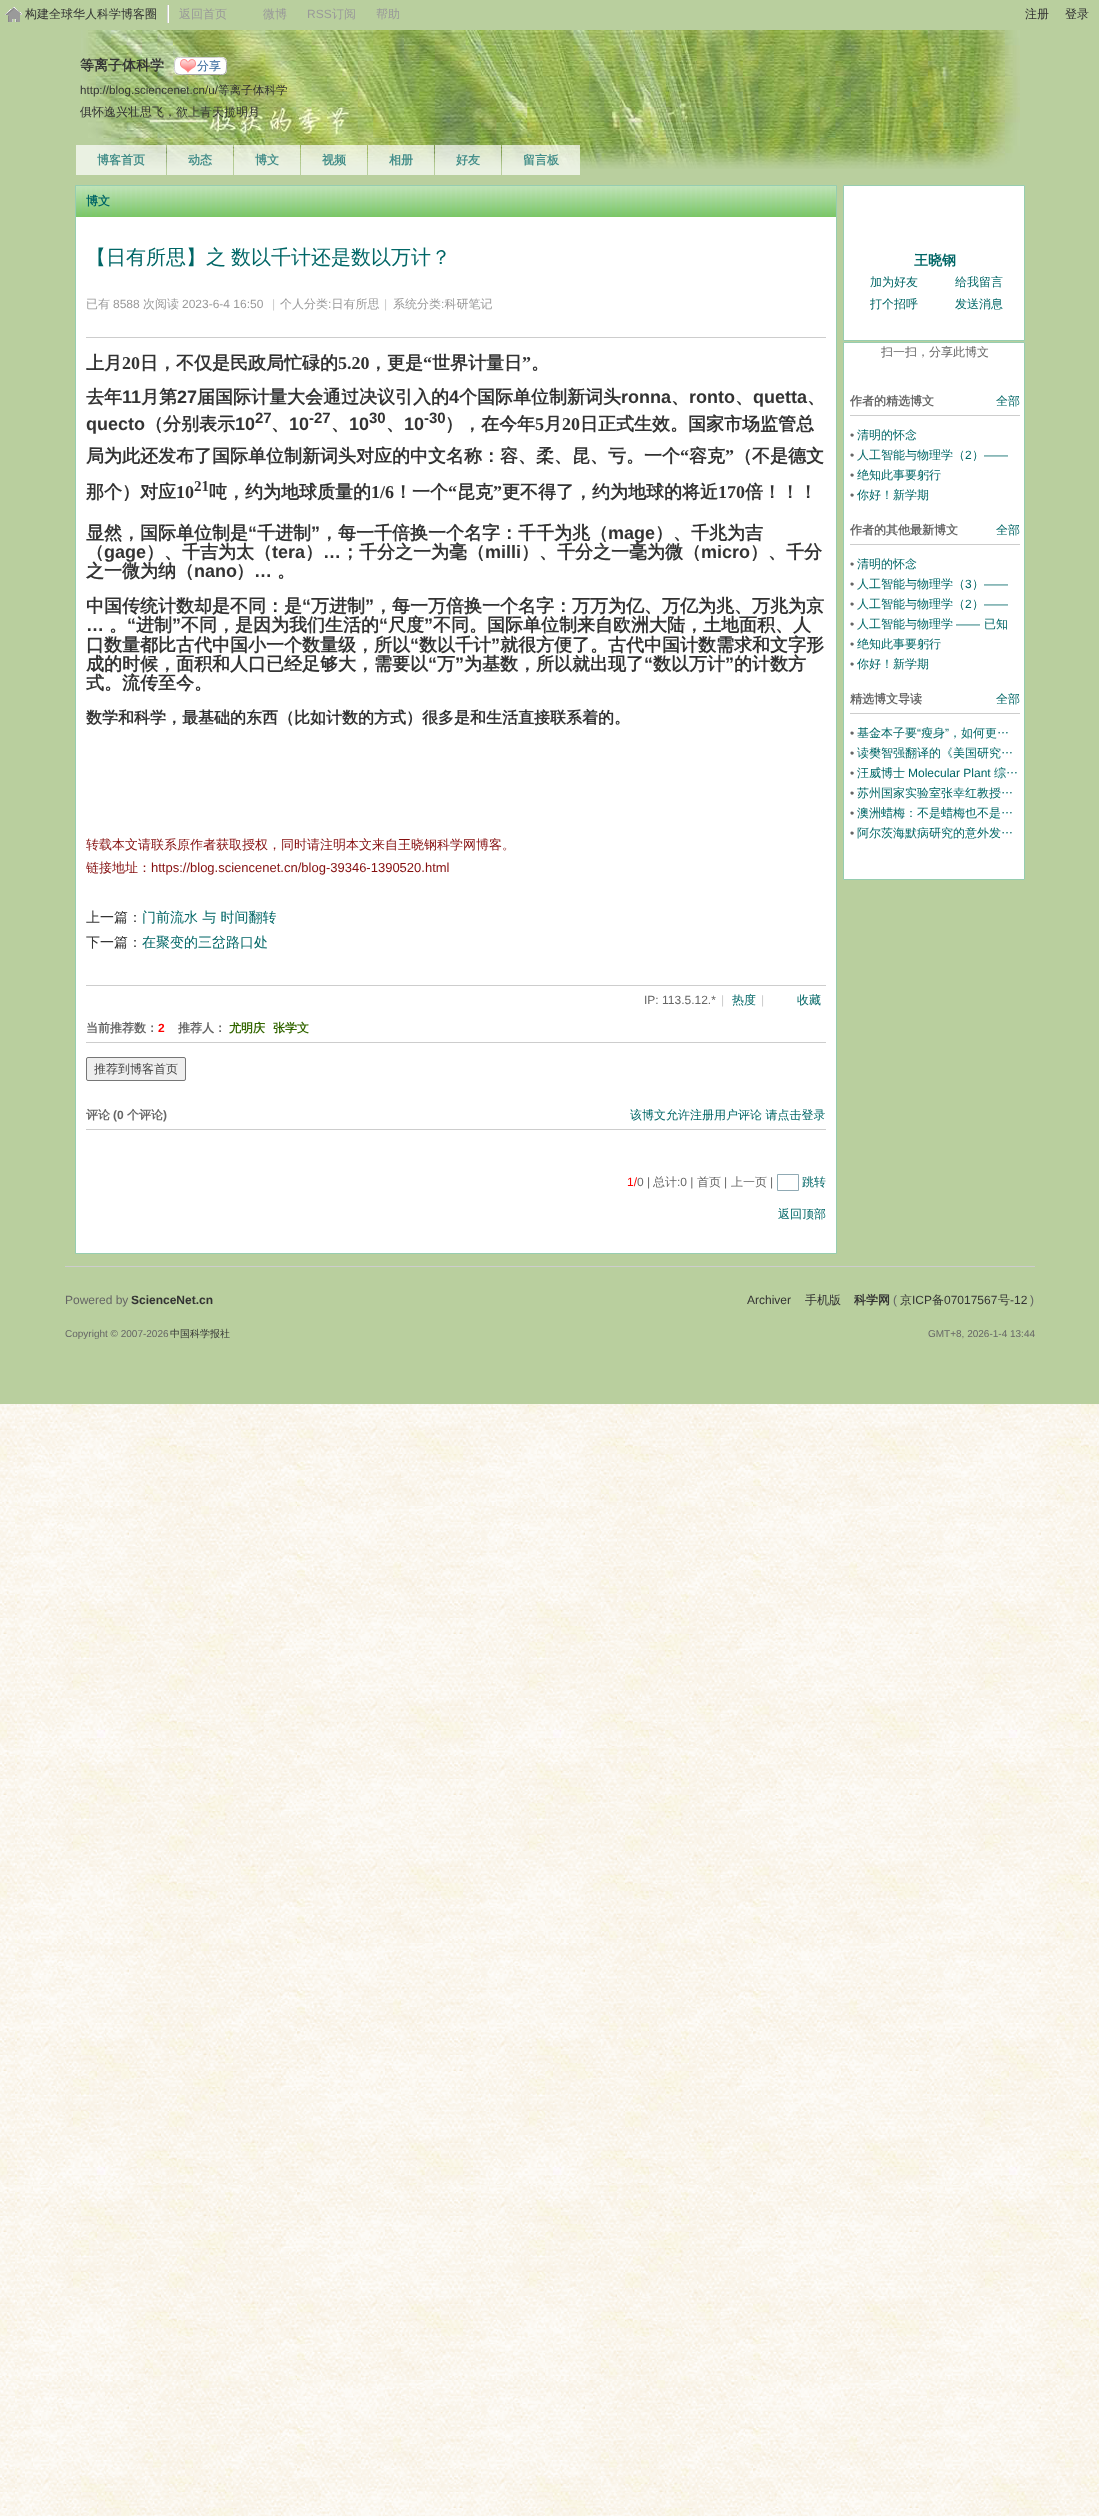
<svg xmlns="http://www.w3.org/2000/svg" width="1099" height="2516">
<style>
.a{font:500 12px WenQuanYi Zen Hei;fill:#333}
.b{font:500 12px WenQuanYi Zen Hei;fill:#999}
.c{font:12px Liberation Sans;fill:#999}
.d{font:bold 14px WenQuanYi Zen Hei;fill:#333}
.e{font:500 12px WenQuanYi Zen Hei;fill:#369}
.f{font:11.6px Liberation Sans;fill:#333}
.g{font:500 11.6px WenQuanYi Zen Hei;fill:#333}
.h{font:bold 12px WenQuanYi Zen Hei;fill:#458f8a}
.i{font:bold 12px WenQuanYi Zen Hei;fill:#066}
.j{font:500 20px WenQuanYi Zen Hei;fill:#066}
.k{font:12px Liberation Sans;fill:#ccc}
.l{font:bold 18px WenQuanYi Zen Hei;fill:#333}
.m{font:bold 18px Liberation Serif;fill:#333}
.n{font:bold 18px Liberation Sans;fill:#333}
.o{font:bold 15px Liberation Sans;fill:#333}
.p{font:bold 15px Liberation Serif;fill:#333}
.q{font:bold 16px WenQuanYi Zen Hei;fill:#333}
.r{font:500 13px WenQuanYi Zen Hei;fill:#850f0f}
.s{font:13px Liberation Sans;fill:#850f0f}
.t{font:500 14px WenQuanYi Zen Hei;fill:#333}
.u{font:500 14px WenQuanYi Zen Hei;fill:#066}
.v{font:12px Liberation Sans;fill:#666}
.w{font:500 12px WenQuanYi Zen Hei;fill:#066}
.x{font:bold 12px WenQuanYi Zen Hei;fill:#666}
.y{font:bold 12px Liberation Sans;fill:#f00}
.z{font:bold 12px WenQuanYi Zen Hei;fill:#360}
.a1{font:500 12px WenQuanYi Zen Hei;fill:#444}
.b1{font:bold 12px Liberation Sans;fill:#666}
.c1{font:12px Liberation Sans;fill:#f00}
.d1{font:500 12px WenQuanYi Zen Hei;fill:#666}
.e1{font:bold 14px WenQuanYi Zen Hei;fill:#066}
.f1{font:12px Liberation Sans;fill:#066}
.g1{font:bold 12px Liberation Sans;fill:#333}
.h1{font:10px Liberation Sans;fill:#666}
.i1{font:500 10px WenQuanYi Zen Hei;fill:#333}
.j1{font:12px Liberation Sans;fill:#333}
.k1{font:bold 12px WenQuanYi Zen Hei;fill:#333}
</style>
<rect width="100%" height="100%" fill="#fff"/>
<image href="1.png" x="0" y="1404" width="1099" height="1112"/>
<path fill="#b9cf9e" d="M0 0h1099v1404H0z"/>
<image href="2.png" x="5" y="7" width="17" height="15"/>
<path fill="#fff" d="M168 5h1v18H168z"/>
<path fill="#d5d5d5" d="M167 5h1v18H167z"/>
<image href="3.png" x="81" y="30" width="939" height="139"/>
<rect fill="#fff" x="174" y="57" width="53" height="18" rx="5"/>
<image href="4.png" x="180" y="59" width="16" height="14"/>
<path fill="none" stroke="#a9a9a9" d="M225 59c2 2 1.5 5 1.5 8c0 9-3 7.5-11.5 7.5h-29c-2 0-7.5 1-10-1.5"/>
<path fill="none" stroke="#ccc" d="M176 73c-2-2-1.5-5-1.5-8c0-9 3-7.5 11.5-7.5h29c2 0 7.5-1 10 1.5"/>
<path fill="#ffffffb3" d="M76 145h90v30H76z"/>
<path fill="#ffffffb3" d="M167 145h66v30H167z"/>
<path fill="#ffffffb3" d="M234 145h66v30H234z"/>
<path fill="#ffffffb3" d="M301 145h66v30H301z"/>
<path fill="#ffffffb3" d="M368 145h66v30H368z"/>
<path fill="#ffffffb3" d="M435 145h66v30H435z"/>
<path fill="#ffffffb3" d="M502 145h78v30H502z"/>
<path fill="#fff" d="M76 217h760v1036H76z"/>
<path fill="none" stroke="#96cdb0" d="M75.5 185.5h761v1068H75.5z"/>
<image href="5.png" x="76" y="186" width="760" height="31"/>
<path fill="#cdcdcd" d="M86 337h740v1H86z"/>
<path fill="#cdcdcd" d="M86 985h740v1H86z"/>
<path fill="#cdcdcd" d="M86 1042h740v1H86z"/>
<rect fill="#efefef" stroke="#767676" x="86.5" y="1057.5" width="99" height="23" rx="1.5"/>
<path fill="#cdcdcd" d="M86 1129h740v1H86z"/>
<path fill="none" stroke="#90aab4" d="M777.5 1174.5h21v16H777.5z"/>
<path fill="#fff" stroke="#96cdb0" d="M843.5 185.5h181v155H843.5z"/>
<path fill="#fff" stroke="#96cdb0" d="M843.5 342.5h181v537H843.5z"/>
<path fill="#cdcdcd" d="M850 415h170v1H850z"/>
<path fill="#cdcdcd" d="M850 544h170v1H850z"/>
<path fill="#cdcdcd" d="M850 713h170v1H850z"/>
<path fill="#cdcdcd" d="M65 1266h970v1H65z"/>
<text class="a" x="25" y="18">构建全球华人科学博客圈</text>
<text class="b" x="179" y="18">返回首页</text>
<text class="b" x="263" y="18">微博</text>
<text class="c" x="307" y="18">RSS</text>
<text class="b" x="332" y="18">订阅</text>
<text class="b" x="376" y="18">帮助</text>
<text class="a" x="1025" y="18">注册</text>
<text class="a" x="1065" y="18">登录</text>
<text class="d" x="80" y="70">等离子体科学</text>
<text class="e" x="197" y="70">分享</text>
<text class="f" x="80" y="94">http://blog.sciencenet.cn/u/</text>
<text class="g" x="218" y="94">等离子体科学</text>
<text class="a" x="80" y="116">俱怀逸兴壮思飞，欲上青天揽明月</text>
<text class="h" x="97" y="164">博客首页</text>
<text class="h" x="188" y="164">动态</text>
<text class="h" x="255" y="164">博文</text>
<text class="h" x="322" y="164">视频</text>
<text class="h" x="389" y="164">相册</text>
<text class="h" x="456" y="164">好友</text>
<text class="h" x="523" y="164">留言板</text>
<text class="i" x="86" y="205">博文</text>
<text class="j" x="86" y="264">【日有所思】之</text>
<text class="j" x="231" y="264">数以千计还是数以万计？</text>
<text class="b" x="86" y="308">已有</text>
<text class="c" x="113" y="308">8588</text>
<text class="b" x="143" y="308">次阅读</text>
<text class="c" x="182" y="308">2023-6-4 16:50</text>
<text class="k" x="272" y="308">|</text>
<text class="b" x="280" y="308">个人分类 日有所思</text>
<text class="k" x="384" y="308">|</text>
<text class="b" x="393" y="308">系统分类 科研笔记</text>
<text class="c" x="328" y="308">:</text>
<text class="c" x="441" y="308">:</text>
<text class="l" x="86" y="369">上月</text>
<text class="m" x="122" y="369">20</text>
<text class="l" x="140" y="369">日，不仅是民政局忙碌的</text>
<text class="m" x="338" y="369">5.20</text>
<text class="l" x="369" y="369">，更是</text>
<text class="m" x="423" y="369">“</text>
<text class="l" x="432" y="369">世界计量日</text>
<text class="m" x="522" y="369">”</text>
<text class="l" x="531" y="369">。</text>
<text class="l" x="86" y="403">去年</text>
<text class="n" x="122" y="403">11</text>
<text class="l" x="141" y="403">月第</text>
<text class="n" x="177" y="403">27</text>
<text class="l" x="197" y="403">届国际计量大会通过决议引入的</text>
<text class="n" x="449" y="403">4</text>
<text class="l" x="459" y="403">个国际单位制新词头</text>
<text class="n" x="621" y="403">ronna</text>
<text class="l" x="671" y="403">、</text>
<text class="n" x="689" y="403">ronto</text>
<text class="l" x="735" y="403">、</text>
<text class="n" x="753" y="403">quetta</text>
<text class="l" x="807" y="403">、</text>
<text class="n" x="86" y="430">quecto</text>
<text class="l" x="145" y="430">（分别表示</text>
<text class="n" x="235" y="430">10</text>
<text class="o" x="255" y="423">27</text>
<text class="l" x="271" y="430">、</text>
<text class="n" x="289" y="430">10</text>
<text class="o" x="309" y="423">-27</text>
<text class="l" x="331" y="430">、</text>
<text class="n" x="349" y="430">10</text>
<text class="o" x="369" y="423">30</text>
<text class="l" x="386" y="430">、</text>
<text class="n" x="404" y="430">10</text>
<text class="o" x="424" y="423">-30</text>
<text class="l" x="445" y="430">），在今年</text>
<text class="m" x="535" y="430">5</text>
<text class="l" x="544" y="430">月</text>
<text class="m" x="562" y="430">20</text>
<text class="l" x="580" y="430">日正式生效。国家市场监管总</text>
<text class="l" x="86" y="462">局为此还发布了国际单位制新词头对应的中文名称：容、柔、昆、亏。一个</text>
<text class="m" x="680" y="462">“</text>
<text class="l" x="689" y="462">容克</text>
<text class="m" x="725" y="462">”</text>
<text class="l" x="734" y="462">（不是德文</text>
<text class="l" x="86" y="498">那个）对应</text>
<text class="m" x="176" y="498">10</text>
<text class="p" x="194" y="491">21</text>
<text class="l" x="209" y="498">吨，约为地球质量的</text>
<text class="m" x="371" y="498">1/6</text>
<text class="l" x="394" y="498">！一个</text>
<text class="m" x="448" y="498">“</text>
<text class="l" x="457" y="498">昆克</text>
<text class="m" x="493" y="498">”</text>
<text class="l" x="502" y="498">更不得了，约为地球的将近</text>
<text class="m" x="718" y="498">170</text>
<text class="l" x="745" y="498">倍！！！</text>
<text class="l" x="86" y="539">显然，国际单位制是</text>
<text class="n" x="248" y="539">“</text>
<text class="l" x="257" y="539">千进制</text>
<text class="n" x="311" y="539">”</text>
<text class="l" x="320" y="539">，每一千倍换一个名字：千千为兆（</text>
<text class="n" x="608" y="539">mage</text>
<text class="l" x="655" y="539">）、千兆为吉</text>
<text class="l" x="86" y="558">（</text>
<text class="n" x="104" y="558">gage</text>
<text class="l" x="146" y="558">）、千吉为太（</text>
<text class="n" x="272" y="558">tera</text>
<text class="l" x="305" y="558">）</text>
<text class="n" x="323" y="558">…</text>
<text class="l" x="341" y="558">；千分之一为毫（</text>
<text class="n" x="485" y="558">milli</text>
<text class="l" x="521" y="558">）、千分之一毫为微（</text>
<text class="n" x="701" y="558">micro</text>
<text class="l" x="750" y="558">）、千分</text>
<text class="l" x="86" y="577">之一微为纳（</text>
<text class="n" x="194" y="577">nano</text>
<text class="l" x="236" y="577">）</text>
<text class="n" x="254" y="577">…</text>
<text class="l" x="277" y="577">。</text>
<text class="l" x="86" y="612">中国传统计数却是不同：是</text>
<text class="n" x="302" y="612">“</text>
<text class="l" x="311" y="612">万进制</text>
<text class="n" x="365" y="612">”</text>
<text class="l" x="374" y="612">，每一万倍换一个名字：万万为亿、万亿为兆、万兆为京</text>
<text class="n" x="127" y="631">“</text>
<text class="l" x="136" y="631">进制</text>
<text class="n" x="172" y="631">”</text>
<text class="l" x="181" y="631">不同，是因为我们生活的</text>
<text class="n" x="379" y="631">“</text>
<text class="l" x="388" y="631">尺度</text>
<text class="n" x="424" y="631">”</text>
<text class="l" x="433" y="631">不同。国际单位制来自欧洲大陆，土地面积、人</text>
<text class="n" x="86" y="631">…</text>
<text class="l" x="109" y="631">。</text>
<text class="l" x="86" y="651">口数量都比古代中国小一个数量级，所以</text>
<text class="n" x="410" y="651">“</text>
<text class="l" x="419" y="651">数以千计</text>
<text class="n" x="491" y="651">”</text>
<text class="l" x="500" y="651">就很方便了。古代中国计数需求和文字形</text>
<text class="l" x="86" y="670">成的时候，面积和人口已经足够大，需要以</text>
<text class="n" x="428" y="670">“</text>
<text class="l" x="437" y="670">万</text>
<text class="n" x="455" y="670">”</text>
<text class="l" x="464" y="670">为基数，所以就出现了</text>
<text class="n" x="644" y="670">“</text>
<text class="l" x="653" y="670">数以万计</text>
<text class="n" x="725" y="670">”</text>
<text class="l" x="734" y="670">的计数方</text>
<text class="l" x="86" y="689">式。流传至今。</text>
<text class="q" x="86" y="723">数学和科学，最基础的东西（比如计数的方式）很多是和生活直接联系着的。</text>
<text class="r" x="86" y="849">转载本文请联系原作者获取授权，同时请注明本文来自王晓钢科学网博客。</text>
<text class="r" x="86" y="872">链接地址：</text>
<text class="s" x="151" y="872">https://blog.sciencenet.cn/blog-39346-1390520.html</text>
<text class="t" x="86" y="922">上一篇：</text>
<text class="u" x="142" y="922">门前流水 与 时间翻转</text>
<text class="t" x="86" y="947">下一篇：</text>
<text class="u" x="142" y="947">在聚变的三岔路口处</text>
<text class="v" x="644" y="1004">IP: 113.5.12.*</text>
<text class="k" x="721" y="1004">|</text>
<text class="w" x="732" y="1004">热度</text>
<text class="k" x="761" y="1004">|</text>
<text class="w" x="797" y="1004">收藏</text>
<text class="x" x="86" y="1032">当前推荐数：</text>
<text class="y" x="158" y="1032">2</text>
<text class="x" x="178" y="1032">推荐人：</text>
<text class="z" x="229" y="1032">尤明庆</text>
<text class="z" x="273" y="1032">张学文</text>
<text class="a1" x="94" y="1073">推荐到博客首页</text>
<text class="x" x="86" y="1119">评论</text>
<text class="b1" x="113" y="1119">(0</text>
<text class="x" x="127" y="1119">个评论</text>
<text class="b1" x="163" y="1119">)</text>
<text class="w" x="630" y="1119">该博文允许注册用户评论 请点击登录</text>
<text class="c1" x="627" y="1186">1/</text>
<text class="v" x="637" y="1186">0 |</text>
<text class="d1" x="653" y="1186">总计</text>
<text class="v" x="677" y="1186">:0 |</text>
<text class="d1" x="697" y="1186">首页</text>
<text class="v" x="724" y="1186">|</text>
<text class="d1" x="731" y="1186">上一页</text>
<text class="v" x="770" y="1186">|</text>
<text class="w" x="802" y="1186">跳转</text>
<text class="w" x="778" y="1218">返回顶部</text>
<text class="e1" x="914" y="265">王晓钢</text>
<text class="w" x="870" y="286">加为好友</text>
<text class="w" x="955" y="286">给我留言</text>
<text class="w" x="870" y="308">打个招呼</text>
<text class="w" x="955" y="308">发送消息</text>
<text class="d1" x="881" y="356">扫一扫，分享此博文</text>
<text class="x" x="850" y="405">作者的精选博文</text>
<text class="w" x="996" y="405">全部</text>
<text class="v" x="850" y="439">•</text>
<text class="w" x="857" y="439">清明的怀念</text>
<text class="v" x="850" y="459">•</text>
<text class="w" x="857" y="459">人工智能与物理学（</text>
<text class="f1" x="965" y="459">2</text>
<text class="w" x="972" y="459">）</text>
<text class="f1" x="984" y="459">——</text>
<text class="v" x="850" y="479">•</text>
<text class="w" x="857" y="479">绝知此事要躬行</text>
<text class="v" x="850" y="499">•</text>
<text class="w" x="857" y="499">你好！新学期</text>
<text class="x" x="850" y="534">作者的其他最新博文</text>
<text class="w" x="996" y="534">全部</text>
<text class="v" x="850" y="568">•</text>
<text class="w" x="857" y="568">清明的怀念</text>
<text class="v" x="850" y="588">•</text>
<text class="w" x="857" y="588">人工智能与物理学（</text>
<text class="f1" x="965" y="588">3</text>
<text class="w" x="972" y="588">）</text>
<text class="f1" x="984" y="588">——</text>
<text class="v" x="850" y="608">•</text>
<text class="w" x="857" y="608">人工智能与物理学（</text>
<text class="f1" x="965" y="608">2</text>
<text class="w" x="972" y="608">）</text>
<text class="f1" x="984" y="608">——</text>
<text class="v" x="850" y="628">•</text>
<text class="w" x="857" y="628">人工智能与物理学</text>
<text class="f1" x="956" y="628">——</text>
<text class="w" x="984" y="628">已知</text>
<text class="v" x="850" y="648">•</text>
<text class="w" x="857" y="648">绝知此事要躬行</text>
<text class="v" x="850" y="668">•</text>
<text class="w" x="857" y="668">你好！新学期</text>
<text class="x" x="850" y="703">精选博文导读</text>
<text class="w" x="996" y="703">全部</text>
<text class="w" x="857" y="737">基金本子要</text>
<text class="f1" x="917" y="737">“</text>
<text class="w" x="921" y="737">瘦身</text>
<text class="f1" x="945" y="737">”</text>
<text class="w" x="949" y="737">，如何更…</text>
<text class="v" x="850" y="737">•</text>
<text class="v" x="850" y="757">•</text>
<text class="w" x="857" y="757">读樊智强翻译的《美国研究…</text>
<text class="v" x="850" y="777">•</text>
<text class="w" x="857" y="777">汪威博士</text>
<text class="f1" x="908" y="777">Molecular Plant</text>
<text class="w" x="994" y="777">综…</text>
<text class="v" x="850" y="797">•</text>
<text class="w" x="857" y="797">苏州国家实验室张幸红教授…</text>
<text class="v" x="850" y="817">•</text>
<text class="w" x="857" y="817">澳洲蜡梅：不是蜡梅也不是…</text>
<text class="v" x="850" y="837">•</text>
<text class="w" x="857" y="837">阿尔茨海默病研究的意外发…</text>
<text class="v" x="65" y="1304">Powered by</text>
<text class="g1" x="131" y="1304">ScienceNet.cn</text>
<text class="h1" x="65" y="1337">Copyright © 2007-2026</text>
<text class="i1" x="170" y="1337">中国科学报社</text>
<text class="j1" x="747" y="1304">Archiver</text>
<text class="a" x="805" y="1304">手机版</text>
<text class="k1" x="854" y="1304">科学网</text>
<text class="v" x="893" y="1304">(</text>
<text class="a" x="900" y="1304">京</text>
<text class="j1" x="912" y="1304">ICP</text>
<text class="a" x="932" y="1304">备</text>
<text class="j1" x="944" y="1304">07017567</text>
<text class="a" x="998" y="1304">号</text>
<text class="j1" x="1010" y="1304">-12</text>
<text class="v" x="1030" y="1304">)</text>
<text class="h1" x="928" y="1337">GMT+8, 2026-1-4 13:44</text>
</svg>
